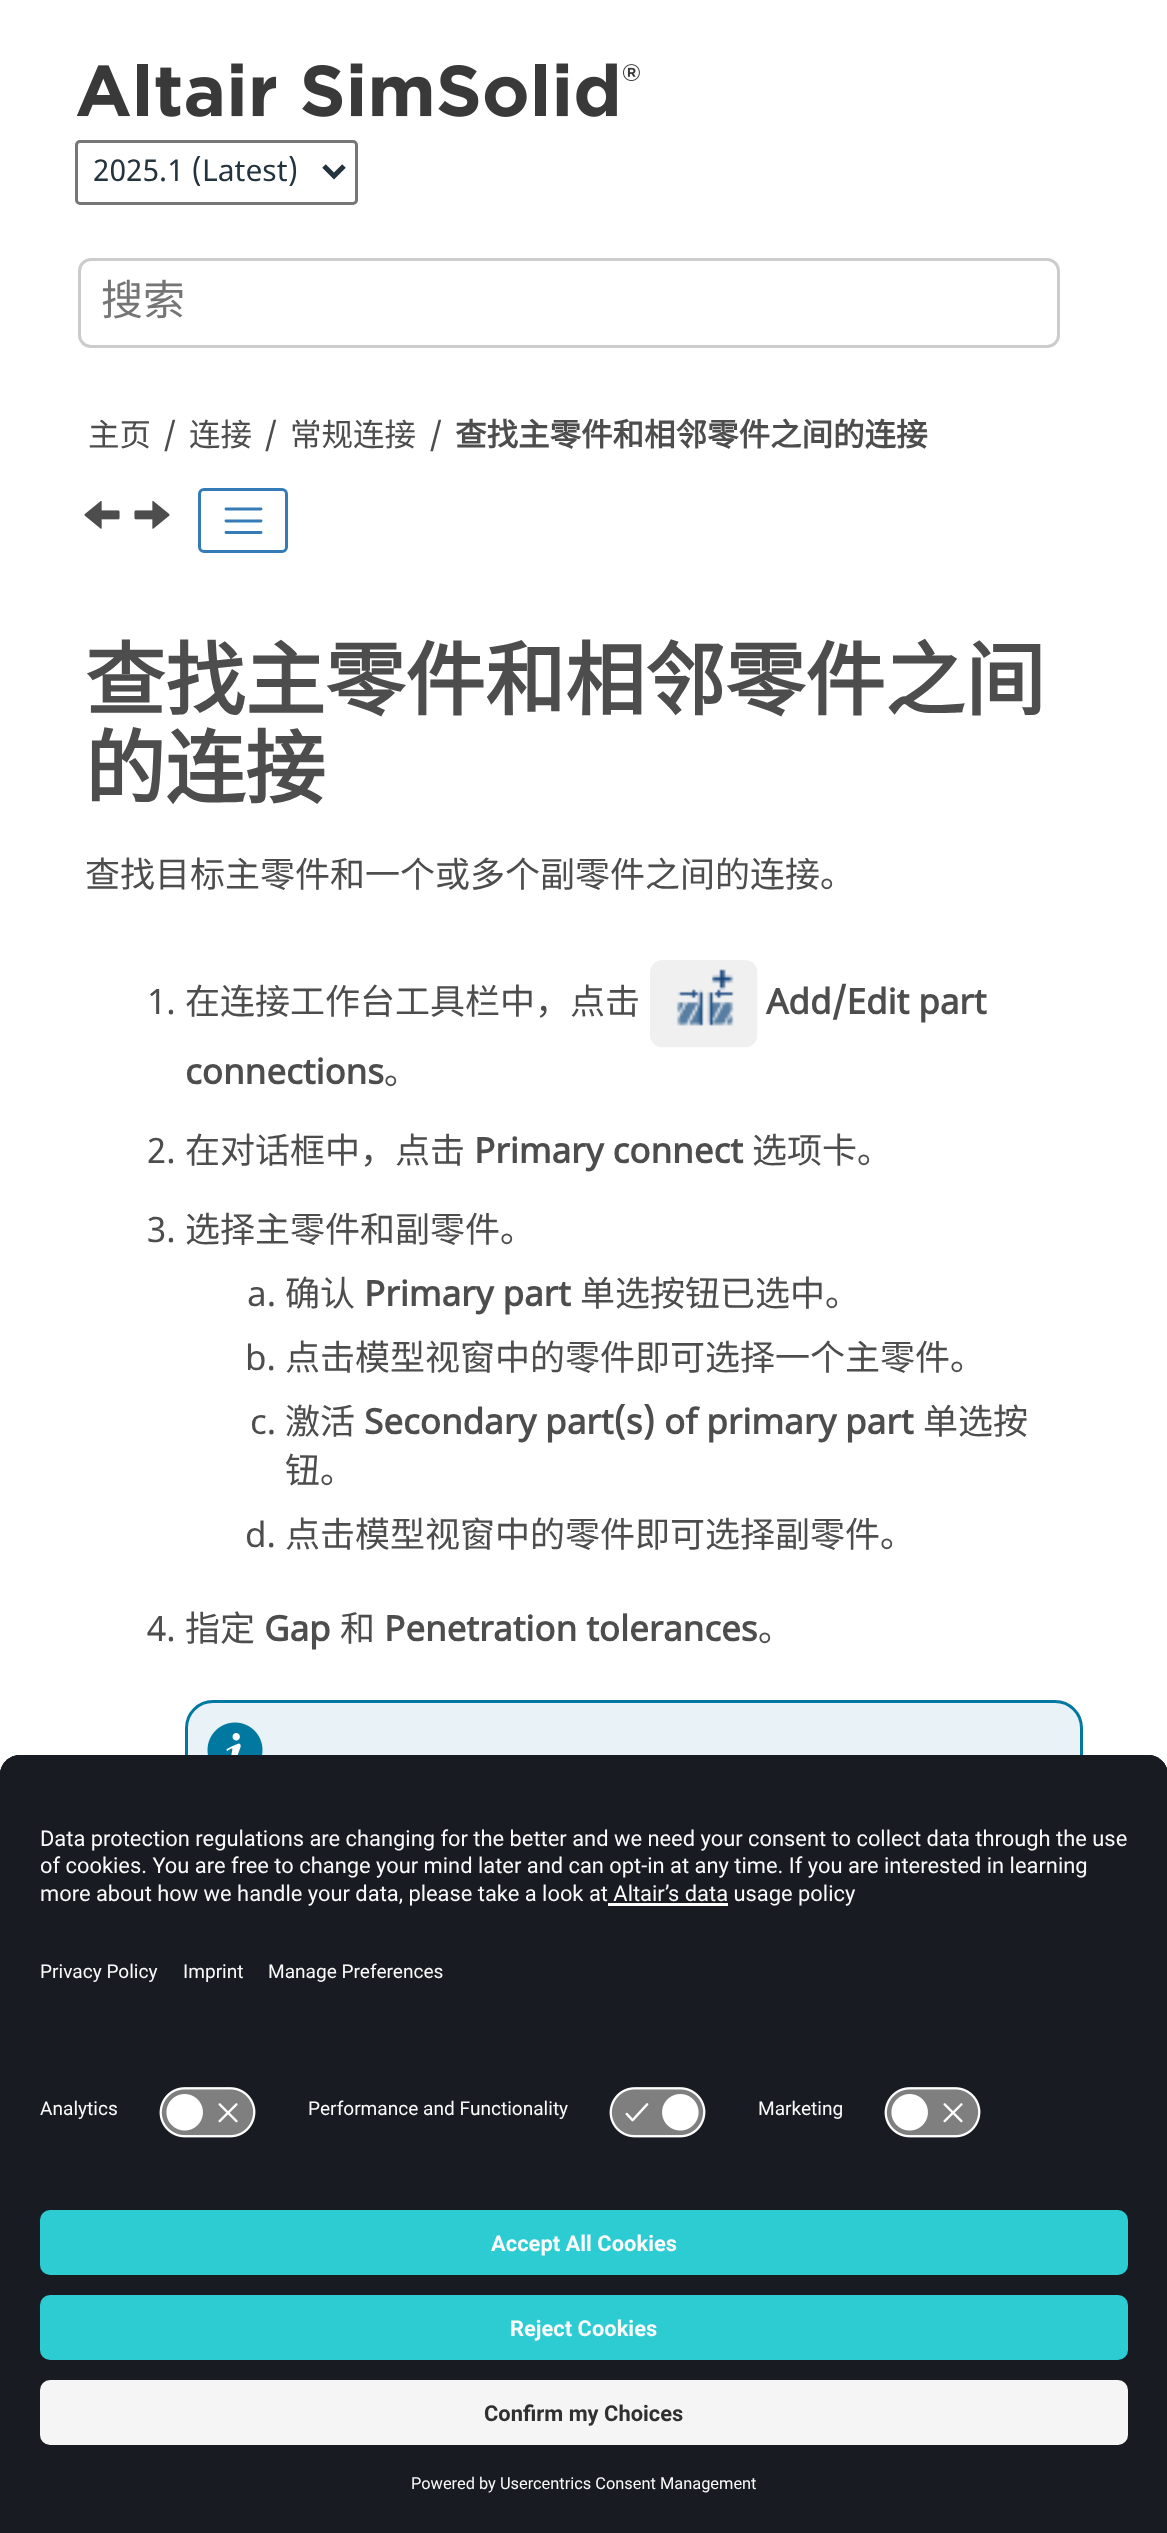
<svg xmlns="http://www.w3.org/2000/svg" width="1167" height="2533">
<style>
.a{font:30px Noto Sans;fill:#23343e}
.b{font:42px Noto Sans CJK SC;fill:#757575}
.c{font:31.5px Noto Sans CJK SC;fill:#4d4d4d}
.d{font:31.5px Noto Sans;fill:#4d4d4d}
.e{font:bold 31.5px Noto Sans CJK SC;fill:#4d4d4d}
.f{font:bold 80px Noto Sans CJK SC;fill:#4d4d4d}
.g{font:35px Noto Sans CJK SC;fill:#4d4d4d}
.h{font:35px Noto Sans;fill:#4d4d4d}
.i{font:bold 35px Noto Sans;fill:#4d4d4d}
.j{font:21.9px Roboto;fill:#fafafa}
.k{font:19.1px Roboto;fill:#fafafa}
.l{font:bold 21.9px Roboto;fill:#fafafa}
.m{font:bold 21.9px Roboto;fill:#303030}
.n{font:16.4px Roboto;fill:#fafafa}
</style>
<rect width="100%" height="100%" fill="#fff"/>
<image href="1.png" x="76" y="63" width="564" height="54"/>
<rect fill="none" stroke="#767676" stroke-width="3" x="76.5" y="141.5" width="280" height="62" rx="3.5"/>
<path fill="none" stroke="#23343e" stroke-width="5" d="M324 166l10 10l10-10"/>
<rect fill="none" stroke="#ccc" stroke-width="3" x="79.5" y="259.5" width="979" height="87" rx="11.5"/>
<image href="2.png" x="84" y="500" width="36" height="29"/>
<image href="3.png" x="134" y="500" width="36" height="29"/>
<rect fill="none" stroke="#347bb7" stroke-width="3" x="199.5" y="489.5" width="87" height="62" rx="4.5"/>
<path fill="none" stroke="#347bb7" stroke-width="2.9" stroke-linecap="round" d="M226 509h35m-35 12h35m-35 11.5h35"/>
<image href="4.png" x="650" y="960" width="108" height="88"/>
<rect fill="#e9f3f7" x="185" y="1700" width="898" height="253" rx="28"/>
<image href="5.png" x="207" y="1722" width="56" height="33"/>
<rect fill="none" stroke="#0078a0" stroke-width="3" x="186.5" y="1701.5" width="895" height="250" rx="26.5"/>
<path fill="#191b23" d="M20 1755h1128c11 0 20 9 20 20v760h-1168v-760c0-11 9-20 20-20z"/>
<path fill="#191b23" d="M20 1755h1128c11 0 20 9 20 20v405h-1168v-405c0-11 9-20 20-20z"/>
<path fill="#191b23" d="M20 1755h1128c11 0 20 9 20 20v295h-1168v-295c0-11 9-20 20-20z"/>
<image href="6.png" x="159" y="2087" width="97" height="51"/>
<image href="7.png" x="609" y="2087" width="97" height="51"/>
<image href="6.png" x="884" y="2087" width="97" height="51"/>
<rect fill="#2dccd3" x="40" y="2210" width="1088" height="65" rx="10"/>
<rect fill="#2dccd3" x="40" y="2295" width="1088" height="65" rx="10"/>
<rect fill="#f5f5f5" x="40" y="2380" width="1088" height="65" rx="10"/>
<text class="a" x="93" y="181">2025.1 (Latest)</text>
<text class="b" x="101" y="315">搜索</text>
<text class="c" x="88" y="446">主页</text>
<text class="d" x="163" y="446">/</text>
<text class="c" x="189" y="446">连接</text>
<text class="d" x="264" y="446">/</text>
<text class="c" x="290" y="446">常规连接</text>
<text class="d" x="429" y="446">/</text>
<text class="e" x="455" y="446">查找主零件和相邻零件之间的连接</text>
<text class="f" x="85" y="709">查找主零件和相邻零件之间</text>
<text class="f" x="85" y="797">的连接</text>
<text class="g" x="85" y="887">查找目标主零件和一个或多个副零件之间的连接。</text>
<text class="h" x="147" y="1014">1.</text>
<text class="g" x="185" y="1014">在连接工作台工具栏中，点击</text>
<text class="i" x="766" y="1014">Add/Edit part</text>
<text class="i" x="185" y="1084">connections</text>
<text class="g" x="384" y="1084">。</text>
<text class="h" x="147" y="1163">2.</text>
<text class="g" x="185" y="1163">在对话框中，点击</text>
<text class="i" x="474" y="1163">Primary connect</text>
<text class="g" x="752" y="1163">选项卡。</text>
<text class="h" x="147" y="1242">3.</text>
<text class="g" x="185" y="1242">选择主零件和副零件。</text>
<text class="h" x="247" y="1306">a.</text>
<text class="g" x="285" y="1306">确认</text>
<text class="i" x="364" y="1306">Primary part</text>
<text class="g" x="580" y="1306">单选按钮已选中。</text>
<text class="h" x="245" y="1370">b.</text>
<text class="g" x="285" y="1370">点击模型视窗中的零件即可选择一个主零件。</text>
<text class="h" x="250" y="1434">c.</text>
<text class="g" x="285" y="1434">激活</text>
<text class="i" x="364" y="1434">Secondary part(s) of primary part</text>
<text class="g" x="923" y="1434">单选按</text>
<text class="g" x="285" y="1483">钮。</text>
<text class="h" x="245" y="1547">d.</text>
<text class="g" x="285" y="1547">点击模型视窗中的零件即可选择副零件。</text>
<text class="h" x="147" y="1641">4.</text>
<text class="g" x="185" y="1641">指定</text>
<text class="i" x="264" y="1641">Gap</text>
<text class="g" x="340" y="1641">和</text>
<text class="i" x="384" y="1641">Penetration tolerances</text>
<text class="g" x="758" y="1641">。</text>
<text class="j" x="40" y="1846">Data protection regulations are changing for the better and we need your consent to collect data through the use</text>
<text class="j" x="40" y="1873">of cookies. You are free to change your mind later and can opt-in at any time. If you are interested in learning</text>
<text class="j" x="40" y="1901">more about how we handle your data, please take a look at Altair’s data usage policy</text>
<path fill="#fff" d="M608 1903h120v3H608z"/>
<text class="k" x="40" y="1978">Privacy Policy</text>
<text class="k" x="183" y="1978">Imprint</text>
<text class="k" x="268" y="1978">Manage Preferences</text>
<text class="k" x="40" y="2115">Analytics</text>
<text class="k" x="308" y="2115">Performance and Functionality</text>
<text class="k" x="758" y="2115">Marketing</text>
<text class="l" x="491" y="2251">Accept All Cookies</text>
<text class="l" x="510" y="2336">Reject Cookies</text>
<text class="m" x="484" y="2421">Confirm my Choices</text>
<text class="n" x="411" y="2489">Powered by Usercentrics Consent Management</text>
</svg>
